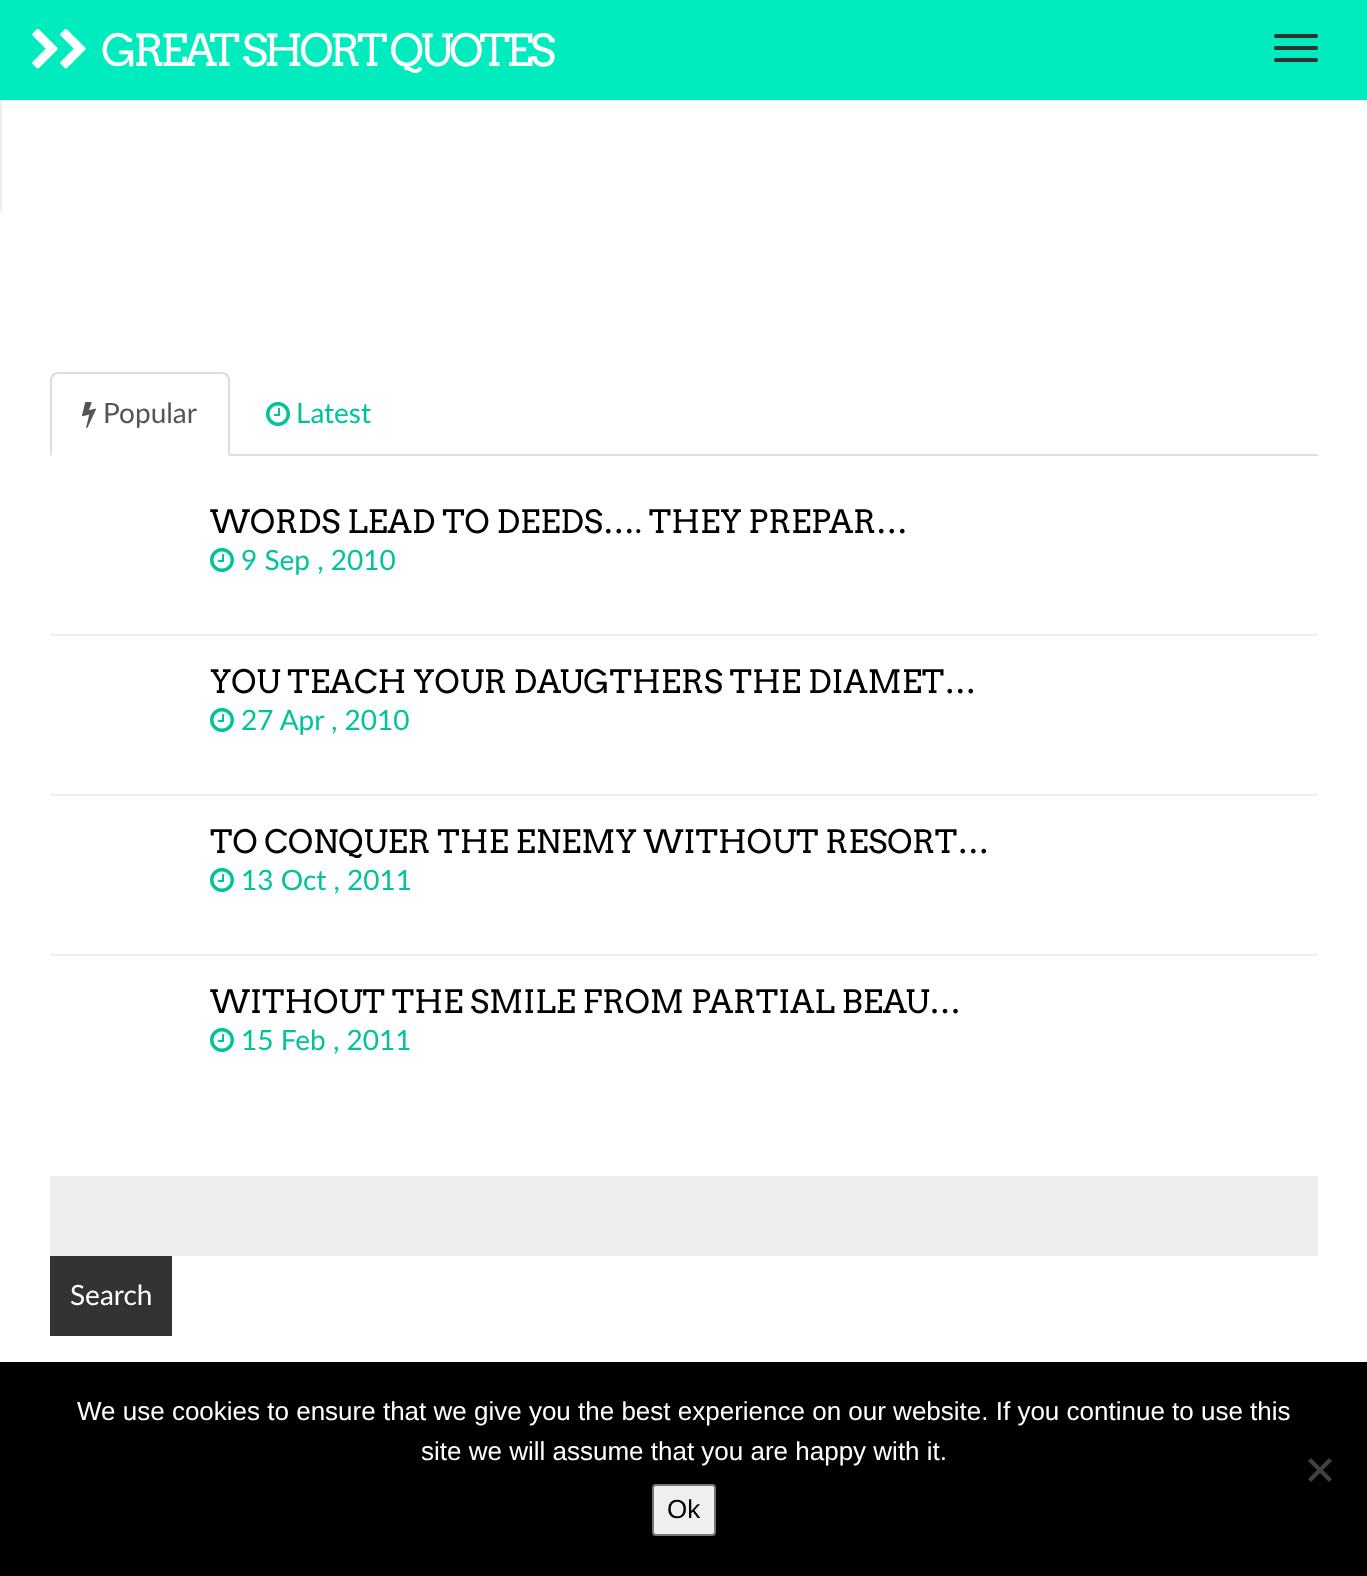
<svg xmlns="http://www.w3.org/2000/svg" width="1367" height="1576">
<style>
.a{font:44px Arvo;letter-spacing:-4px;fill:#fff}
.b{font:28px Lato;fill:#555}
.c{font:28px Lato;fill:#02c29d}
.d{font:32px Arvo;fill:#000}
.e{font:28px Lato;fill:#fff}
.f{font:26px Liberation Sans;fill:#fff}
.g{font:26px Liberation Sans;fill:#000}
</style>
<rect width="100%" height="100%" fill="#fff"/>
<path fill="#00ebbe" d="M0 0h1367v100H0z"/>
<image href="1.png" x="32" y="28" width="26" height="41"/>
<image href="1.png" x="60" y="28" width="26" height="41"/>
<rect fill="#333" x="1274" y="34" width="44" height="4" rx="2"/>
<rect fill="#333" x="1274" y="46" width="44" height="4" rx="2"/>
<rect fill="#333" x="1274" y="58" width="44" height="4" rx="2"/>
<path fill="#eee" d="M0 100h2v112H0z"/>
<path fill="#ddd" d="M230 454h1088v2H230z"/>
<path fill="#ddd" d="M58 372c-2 0-4 1-6 2l2 2c1-1 2-2 4-2h164c2 0 3 1 4 2l2-2c-2-1-4-2-6-2z"/>
<path fill="#ddd" d="M230 456v-76c0-2-1-4-2-6l-2 2l2 3v75z"/>
<path fill="#ddd" d="M50 456l2-2v-75l2-3l-2-2c-1 2-2 4-2 6z"/>
<image href="2.png" x="82" y="402" width="14" height="26"/>
<image href="3.png" x="266" y="402" width="24" height="24"/>
<path fill="#f0efef" d="M50 634h1268v2H50z"/>
<image href="3.png" x="210" y="548" width="24" height="24"/>
<path fill="#f0efef" d="M50 794h1268v2H50z"/>
<image href="3.png" x="210" y="708" width="24" height="24"/>
<path fill="#f0efef" d="M50 954h1268v2H50z"/>
<image href="3.png" x="210" y="868" width="24" height="24"/>
<image href="3.png" x="210" y="1028" width="24" height="24"/>
<path fill="#eee" d="M50 1176h1268v80H50z"/>
<path fill="#333" d="M50 1256h122v80H50z"/>
<path fill="#000" d="M0 1362h1367v214H0z"/>
<path fill="#404040" d="M1329 1458l3 3l-21 21l-3-3z"/>
<path fill="#404040" d="M1308 1461l3-3l21 21l-3 3z"/>
<rect fill="#efefef" stroke="#767676" stroke-width="2" x="653" y="1485" width="62" height="50" rx="3"/>
<text class="a" x="101" y="66">GREAT SHORT QUOTES</text>
<text class="b" x="103" y="423">Popular</text>
<text class="c" x="296" y="423">Latest</text>
<text class="d" x="210" y="533">WORDS LEAD TO DEEDS…. THEY PREPAR…</text>
<text class="c" x="241" y="570">9 Sep , 2010</text>
<text class="d" x="210" y="693">YOU TEACH YOUR DAUGTHERS THE DIAMET…</text>
<text class="c" x="241" y="730">27 Apr , 2010</text>
<text class="d" x="210" y="853">TO CONQUER THE ENEMY WITHOUT RESORT…</text>
<text class="c" x="241" y="890">13 Oct , 2011</text>
<text class="d" x="210" y="1013">WITHOUT THE SMILE FROM PARTIAL BEAU…</text>
<text class="c" x="241" y="1050">15 Feb , 2011</text>
<text class="e" x="70" y="1305">Search</text>
<text class="f" x="77" y="1420">We use cookies to ensure that we give you the best experience on our website. If you continue to use this</text>
<text class="f" x="421" y="1460">site we will assume that you are happy with it.</text>
<text class="g" x="667" y="1518">Ok</text>
</svg>
